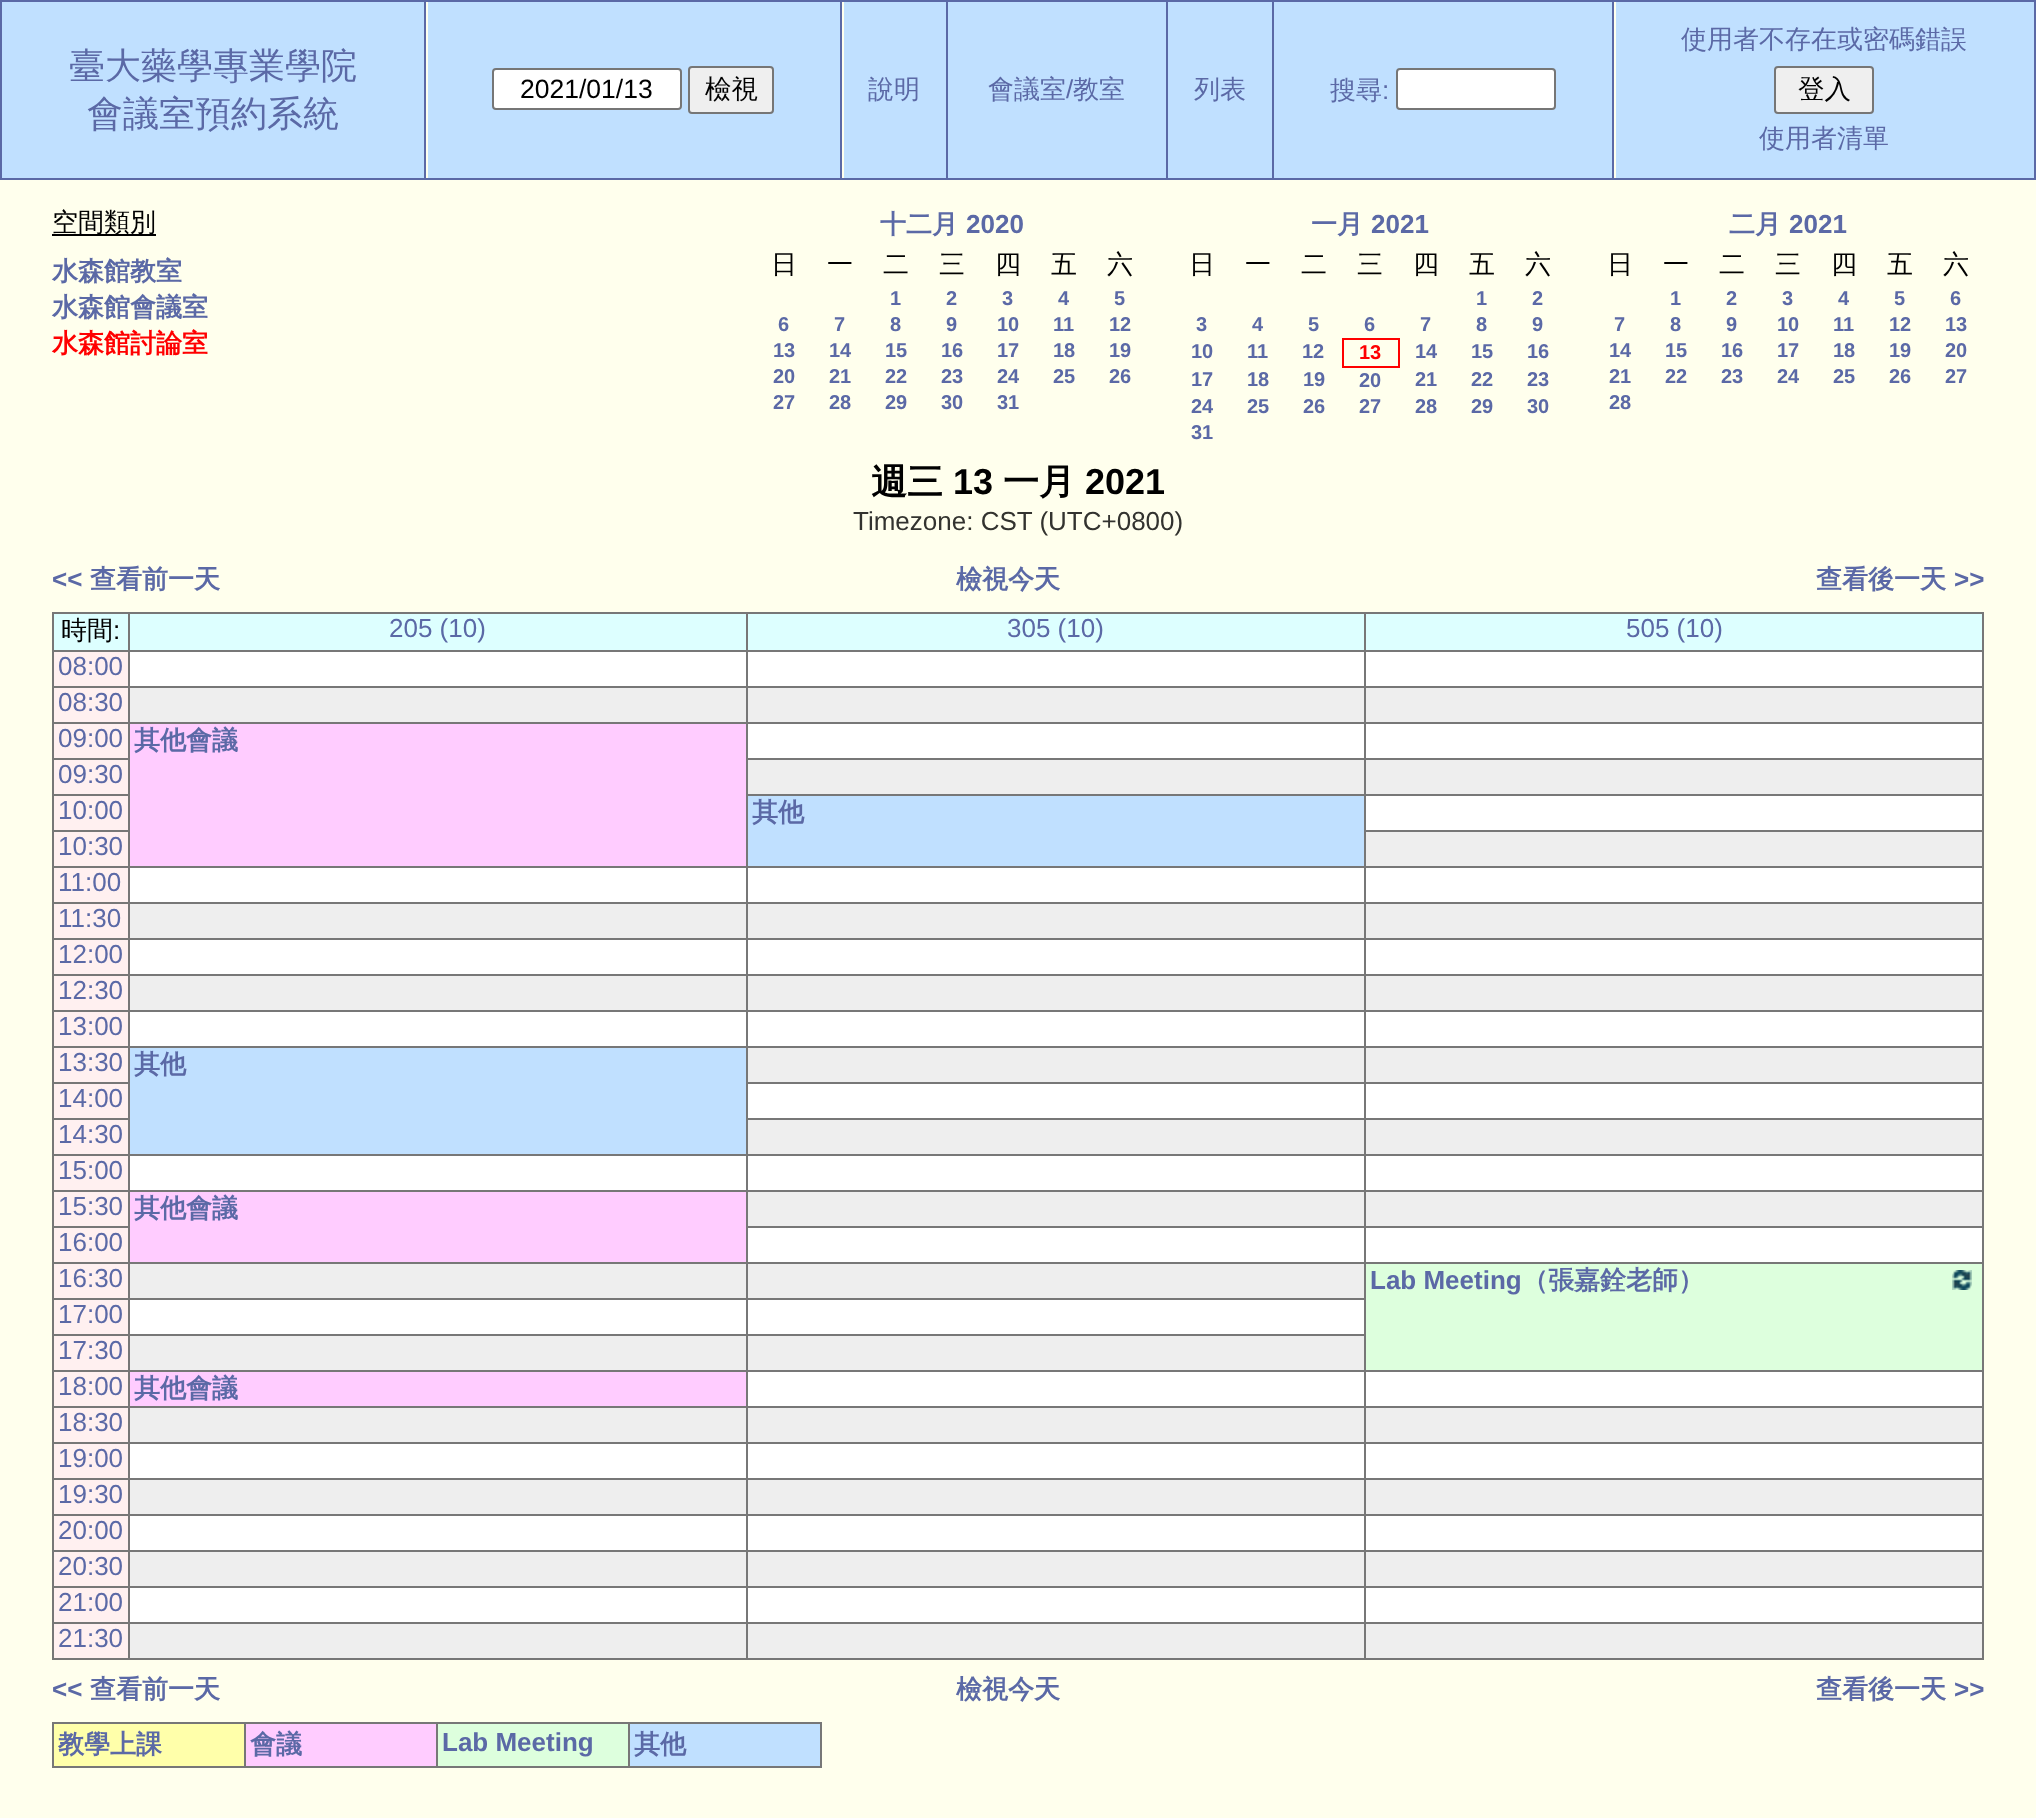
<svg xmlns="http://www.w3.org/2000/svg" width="2036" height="1818">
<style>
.a{font:500 36px WenQuanYi Zen Hei;fill:#5b69a6}
.b{font:26.5px Liberation Sans;fill:#000}
.c{font:500 26.5px WenQuanYi Zen Hei;fill:#000}
.d{font:500 26px WenQuanYi Zen Hei;fill:#5b69a6}
.e{font:26px Liberation Sans;fill:#5b69a6}
.f{font:500 26px WenQuanYi Zen Hei;fill:#000}
.g{font:bold 26px WenQuanYi Zen Hei;fill:#5b69a6}
.h{font:bold 26px WenQuanYi Zen Hei;fill:#f00}
.i{font:bold 26px Liberation Sans;fill:#5b69a6}
.j{font:bold 20px Liberation Sans;fill:#5b69a6}
.k{font:bold 20px Liberation Sans;fill:#f00}
.l{font:bold 36px WenQuanYi Zen Hei;fill:#000}
.m{font:bold 36px Liberation Sans;fill:#000}
.n{font:26px Liberation Sans;fill:#33332f}
.o{font:26px Liberation Sans;fill:#000}
</style>
<rect width="100%" height="100%" fill="#ffffed"/>
<path fill="#5b69a6" d="M0 0h2036v2H0z"/>
<path fill="#5b69a6" d="M2034 0h2v180H2034z"/>
<path fill="#5b69a6" d="M0 178h2036v2H0z"/>
<path fill="#5b69a6" d="M0 0h2v180H0z"/>
<path fill="#c0e0ff" d="M2 2h422v176H2z"/>
<path fill="#c0e0ff" d="M428 2h412v176H428z"/>
<path fill="#5b69a6" d="M424 0h2v180H424z"/>
<rect fill="#fff" stroke="#767676" stroke-width="2" x="493" y="69" width="188" height="40" rx="3"/>
<rect fill="#efefef" stroke="#767676" stroke-width="2" x="689" y="67" width="84" height="46" rx="3"/>
<path fill="#c0e0ff" d="M844 2h102v176H844z"/>
<path fill="#5b69a6" d="M840 0h2v180H840z"/>
<path fill="#c0e0ff" d="M948 2h218v176H948z"/>
<path fill="#5b69a6" d="M946 0h2v180H946z"/>
<path fill="#c0e0ff" d="M1168 2h104v176H1168z"/>
<path fill="#5b69a6" d="M1166 0h2v180H1166z"/>
<path fill="#c0e0ff" d="M1274 2h338v176H1274z"/>
<path fill="#5b69a6" d="M1272 0h2v180H1272z"/>
<rect fill="#fff" stroke="#767676" stroke-width="2" x="1397" y="69" width="158" height="40" rx="3"/>
<path fill="#c0e0ff" d="M1616 2h418v176H1616z"/>
<path fill="#5b69a6" d="M1612 0h2v180H1612z"/>
<rect fill="#efefef" stroke="#767676" stroke-width="2" x="1775" y="67" width="98" height="46" rx="3"/>
<path fill="#000" d="M52 234h104v2H52z"/>
<path fill="#f00" d="M1342 338h58v2H1342z"/>
<path fill="#f00" d="M1398 338h2v30H1398z"/>
<path fill="#f00" d="M1342 366h58v2H1342z"/>
<path fill="#f00" d="M1342 338h2v30H1342z"/>
<path fill="none" stroke="#777" stroke-width="2" d="M53 613h1930v1046H53z"/>
<path fill="#dff" d="M54 614h74v36H54z"/>
<path fill="#dff" d="M130 614h616v36H130z"/>
<path fill="#777" d="M128 614h2v36H128z"/>
<path fill="#dff" d="M748 614h616v36H748z"/>
<path fill="#777" d="M746 614h2v36H746z"/>
<path fill="#dff" d="M1366 614h616v36H1366z"/>
<path fill="#777" d="M1364 614h2v36H1364z"/>
<path fill="#fff0f0" d="M54 652h74v34H54z"/>
<path fill="#777" d="M54 650h1928v2H54z"/>
<path fill="#fff" d="M130 652h616v34H130z"/>
<path fill="#777" d="M128 650h2v36H128z"/>
<path fill="#fff" d="M748 652h616v34H748z"/>
<path fill="#777" d="M746 650h2v36H746z"/>
<path fill="#fff" d="M1366 652h616v34H1366z"/>
<path fill="#777" d="M1364 650h2v36H1364z"/>
<path fill="#fff0f0" d="M54 688h74v34H54z"/>
<path fill="#777" d="M54 686h1928v2H54z"/>
<path fill="#eee" d="M130 688h616v34H130z"/>
<path fill="#777" d="M128 686h2v36H128z"/>
<path fill="#eee" d="M748 688h616v34H748z"/>
<path fill="#777" d="M746 686h2v36H746z"/>
<path fill="#eee" d="M1366 688h616v34H1366z"/>
<path fill="#777" d="M1364 686h2v36H1364z"/>
<path fill="#fff0f0" d="M54 724h74v34H54z"/>
<path fill="#777" d="M54 722h1928v2H54z"/>
<path fill="#fcf" d="M130 724h616v142H130z"/>
<path fill="#777" d="M128 722h2v144H128z"/>
<path fill="#fff" d="M748 724h616v34H748z"/>
<path fill="#777" d="M746 722h2v36H746z"/>
<path fill="#fff" d="M1366 724h616v34H1366z"/>
<path fill="#777" d="M1364 722h2v36H1364z"/>
<path fill="#eee" d="M748 760h616v34H748z"/>
<path fill="#777" d="M746 758h1236v2H746z"/>
<path fill="#777" d="M746 758h2v36H746z"/>
<path fill="#fff0f0" d="M54 760h74v34H54z"/>
<path fill="#777" d="M54 758h74v2H54z"/>
<path fill="#eee" d="M1366 760h616v34H1366z"/>
<path fill="#777" d="M1364 758h2v36H1364z"/>
<path fill="#fff0f0" d="M54 796h74v34H54z"/>
<path fill="#777" d="M54 794h74v2H54z"/>
<path fill="#c0e0ff" d="M748 796h616v70H748z"/>
<path fill="#777" d="M746 794h1236v2H746z"/>
<path fill="#777" d="M746 794h2v72H746z"/>
<path fill="#fff" d="M1366 796h616v34H1366z"/>
<path fill="#777" d="M1364 794h2v36H1364z"/>
<path fill="#fff0f0" d="M54 832h74v34H54z"/>
<path fill="#777" d="M54 830h74v2H54z"/>
<path fill="#eee" d="M1366 832h616v34H1366z"/>
<path fill="#777" d="M1364 830h618v2H1364z"/>
<path fill="#777" d="M1364 830h2v36H1364z"/>
<path fill="#fff0f0" d="M54 868h74v34H54z"/>
<path fill="#777" d="M54 866h1928v2H54z"/>
<path fill="#fff" d="M130 868h616v34H130z"/>
<path fill="#777" d="M128 866h2v36H128z"/>
<path fill="#fff" d="M748 868h616v34H748z"/>
<path fill="#777" d="M746 866h2v36H746z"/>
<path fill="#fff" d="M1366 868h616v34H1366z"/>
<path fill="#777" d="M1364 866h2v36H1364z"/>
<path fill="#fff0f0" d="M54 904h74v34H54z"/>
<path fill="#777" d="M54 902h1928v2H54z"/>
<path fill="#eee" d="M130 904h616v34H130z"/>
<path fill="#777" d="M128 902h2v36H128z"/>
<path fill="#eee" d="M748 904h616v34H748z"/>
<path fill="#777" d="M746 902h2v36H746z"/>
<path fill="#eee" d="M1366 904h616v34H1366z"/>
<path fill="#777" d="M1364 902h2v36H1364z"/>
<path fill="#fff0f0" d="M54 940h74v34H54z"/>
<path fill="#777" d="M54 938h1928v2H54z"/>
<path fill="#fff" d="M130 940h616v34H130z"/>
<path fill="#777" d="M128 938h2v36H128z"/>
<path fill="#fff" d="M748 940h616v34H748z"/>
<path fill="#777" d="M746 938h2v36H746z"/>
<path fill="#fff" d="M1366 940h616v34H1366z"/>
<path fill="#777" d="M1364 938h2v36H1364z"/>
<path fill="#fff0f0" d="M54 976h74v34H54z"/>
<path fill="#777" d="M54 974h1928v2H54z"/>
<path fill="#eee" d="M130 976h616v34H130z"/>
<path fill="#777" d="M128 974h2v36H128z"/>
<path fill="#eee" d="M748 976h616v34H748z"/>
<path fill="#777" d="M746 974h2v36H746z"/>
<path fill="#eee" d="M1366 976h616v34H1366z"/>
<path fill="#777" d="M1364 974h2v36H1364z"/>
<path fill="#fff0f0" d="M54 1012h74v34H54z"/>
<path fill="#777" d="M54 1010h1928v2H54z"/>
<path fill="#fff" d="M130 1012h616v34H130z"/>
<path fill="#777" d="M128 1010h2v36H128z"/>
<path fill="#fff" d="M748 1012h616v34H748z"/>
<path fill="#777" d="M746 1010h2v36H746z"/>
<path fill="#fff" d="M1366 1012h616v34H1366z"/>
<path fill="#777" d="M1364 1010h2v36H1364z"/>
<path fill="#fff0f0" d="M54 1048h74v34H54z"/>
<path fill="#777" d="M54 1046h1928v2H54z"/>
<path fill="#c0e0ff" d="M130 1048h616v106H130z"/>
<path fill="#777" d="M128 1046h2v108H128z"/>
<path fill="#eee" d="M748 1048h616v34H748z"/>
<path fill="#777" d="M746 1046h2v36H746z"/>
<path fill="#eee" d="M1366 1048h616v34H1366z"/>
<path fill="#777" d="M1364 1046h2v36H1364z"/>
<path fill="#fff" d="M748 1084h616v34H748z"/>
<path fill="#777" d="M746 1082h1236v2H746z"/>
<path fill="#777" d="M746 1082h2v36H746z"/>
<path fill="#fff0f0" d="M54 1084h74v34H54z"/>
<path fill="#777" d="M54 1082h74v2H54z"/>
<path fill="#fff" d="M1366 1084h616v34H1366z"/>
<path fill="#777" d="M1364 1082h2v36H1364z"/>
<path fill="#eee" d="M748 1120h616v34H748z"/>
<path fill="#777" d="M746 1118h1236v2H746z"/>
<path fill="#777" d="M746 1118h2v36H746z"/>
<path fill="#fff0f0" d="M54 1120h74v34H54z"/>
<path fill="#777" d="M54 1118h74v2H54z"/>
<path fill="#eee" d="M1366 1120h616v34H1366z"/>
<path fill="#777" d="M1364 1118h2v36H1364z"/>
<path fill="#fff0f0" d="M54 1156h74v34H54z"/>
<path fill="#777" d="M54 1154h1928v2H54z"/>
<path fill="#fff" d="M130 1156h616v34H130z"/>
<path fill="#777" d="M128 1154h2v36H128z"/>
<path fill="#fff" d="M748 1156h616v34H748z"/>
<path fill="#777" d="M746 1154h2v36H746z"/>
<path fill="#fff" d="M1366 1156h616v34H1366z"/>
<path fill="#777" d="M1364 1154h2v36H1364z"/>
<path fill="#fff0f0" d="M54 1192h74v34H54z"/>
<path fill="#777" d="M54 1190h1928v2H54z"/>
<path fill="#fcf" d="M130 1192h616v70H130z"/>
<path fill="#777" d="M128 1190h2v72H128z"/>
<path fill="#eee" d="M748 1192h616v34H748z"/>
<path fill="#777" d="M746 1190h2v36H746z"/>
<path fill="#eee" d="M1366 1192h616v34H1366z"/>
<path fill="#777" d="M1364 1190h2v36H1364z"/>
<path fill="#fff" d="M748 1228h616v34H748z"/>
<path fill="#777" d="M746 1226h1236v2H746z"/>
<path fill="#777" d="M746 1226h2v36H746z"/>
<path fill="#fff0f0" d="M54 1228h74v34H54z"/>
<path fill="#777" d="M54 1226h74v2H54z"/>
<path fill="#fff" d="M1366 1228h616v34H1366z"/>
<path fill="#777" d="M1364 1226h2v36H1364z"/>
<path fill="#fff0f0" d="M54 1264h74v34H54z"/>
<path fill="#777" d="M54 1262h1928v2H54z"/>
<path fill="#eee" d="M130 1264h616v34H130z"/>
<path fill="#777" d="M128 1262h2v36H128z"/>
<path fill="#eee" d="M748 1264h616v34H748z"/>
<path fill="#777" d="M746 1262h2v36H746z"/>
<path fill="#dfd" d="M1366 1264h616v106H1366z"/>
<path fill="#777" d="M1364 1262h2v108H1364z"/>
<image href="1.png" x="1952" y="1270" width="20" height="20"/>
<path fill="#fff0f0" d="M54 1300h74v34H54z"/>
<path fill="#777" d="M54 1298h1310v2H54z"/>
<path fill="#fff" d="M130 1300h616v34H130z"/>
<path fill="#777" d="M128 1298h2v36H128z"/>
<path fill="#fff" d="M748 1300h616v34H748z"/>
<path fill="#777" d="M746 1298h2v36H746z"/>
<path fill="#fff0f0" d="M54 1336h74v34H54z"/>
<path fill="#777" d="M54 1334h1310v2H54z"/>
<path fill="#eee" d="M130 1336h616v34H130z"/>
<path fill="#777" d="M128 1334h2v36H128z"/>
<path fill="#eee" d="M748 1336h616v34H748z"/>
<path fill="#777" d="M746 1334h2v36H746z"/>
<path fill="#fff0f0" d="M54 1372h74v34H54z"/>
<path fill="#777" d="M54 1370h1928v2H54z"/>
<path fill="#fcf" d="M130 1372h616v34H130z"/>
<path fill="#777" d="M128 1370h2v36H128z"/>
<path fill="#fff" d="M748 1372h616v34H748z"/>
<path fill="#777" d="M746 1370h2v36H746z"/>
<path fill="#fff" d="M1366 1372h616v34H1366z"/>
<path fill="#777" d="M1364 1370h2v36H1364z"/>
<path fill="#fff0f0" d="M54 1408h74v34H54z"/>
<path fill="#777" d="M54 1406h1928v2H54z"/>
<path fill="#eee" d="M130 1408h616v34H130z"/>
<path fill="#777" d="M128 1406h2v36H128z"/>
<path fill="#eee" d="M748 1408h616v34H748z"/>
<path fill="#777" d="M746 1406h2v36H746z"/>
<path fill="#eee" d="M1366 1408h616v34H1366z"/>
<path fill="#777" d="M1364 1406h2v36H1364z"/>
<path fill="#fff0f0" d="M54 1444h74v34H54z"/>
<path fill="#777" d="M54 1442h1928v2H54z"/>
<path fill="#fff" d="M130 1444h616v34H130z"/>
<path fill="#777" d="M128 1442h2v36H128z"/>
<path fill="#fff" d="M748 1444h616v34H748z"/>
<path fill="#777" d="M746 1442h2v36H746z"/>
<path fill="#fff" d="M1366 1444h616v34H1366z"/>
<path fill="#777" d="M1364 1442h2v36H1364z"/>
<path fill="#fff0f0" d="M54 1480h74v34H54z"/>
<path fill="#777" d="M54 1478h1928v2H54z"/>
<path fill="#eee" d="M130 1480h616v34H130z"/>
<path fill="#777" d="M128 1478h2v36H128z"/>
<path fill="#eee" d="M748 1480h616v34H748z"/>
<path fill="#777" d="M746 1478h2v36H746z"/>
<path fill="#eee" d="M1366 1480h616v34H1366z"/>
<path fill="#777" d="M1364 1478h2v36H1364z"/>
<path fill="#fff0f0" d="M54 1516h74v34H54z"/>
<path fill="#777" d="M54 1514h1928v2H54z"/>
<path fill="#fff" d="M130 1516h616v34H130z"/>
<path fill="#777" d="M128 1514h2v36H128z"/>
<path fill="#fff" d="M748 1516h616v34H748z"/>
<path fill="#777" d="M746 1514h2v36H746z"/>
<path fill="#fff" d="M1366 1516h616v34H1366z"/>
<path fill="#777" d="M1364 1514h2v36H1364z"/>
<path fill="#fff0f0" d="M54 1552h74v34H54z"/>
<path fill="#777" d="M54 1550h1928v2H54z"/>
<path fill="#eee" d="M130 1552h616v34H130z"/>
<path fill="#777" d="M128 1550h2v36H128z"/>
<path fill="#eee" d="M748 1552h616v34H748z"/>
<path fill="#777" d="M746 1550h2v36H746z"/>
<path fill="#eee" d="M1366 1552h616v34H1366z"/>
<path fill="#777" d="M1364 1550h2v36H1364z"/>
<path fill="#fff0f0" d="M54 1588h74v34H54z"/>
<path fill="#777" d="M54 1586h1928v2H54z"/>
<path fill="#fff" d="M130 1588h616v34H130z"/>
<path fill="#777" d="M128 1586h2v36H128z"/>
<path fill="#fff" d="M748 1588h616v34H748z"/>
<path fill="#777" d="M746 1586h2v36H746z"/>
<path fill="#fff" d="M1366 1588h616v34H1366z"/>
<path fill="#777" d="M1364 1586h2v36H1364z"/>
<path fill="#fff0f0" d="M54 1624h74v34H54z"/>
<path fill="#777" d="M54 1622h1928v2H54z"/>
<path fill="#eee" d="M130 1624h616v34H130z"/>
<path fill="#777" d="M128 1622h2v36H128z"/>
<path fill="#eee" d="M748 1624h616v34H748z"/>
<path fill="#777" d="M746 1622h2v36H746z"/>
<path fill="#eee" d="M1366 1624h616v34H1366z"/>
<path fill="#777" d="M1364 1622h2v36H1364z"/>
<path fill="#ffa" d="M54 1724h190v42H54z"/>
<path fill="#777" d="M628 1722h194v2H628z"/>
<path fill="#777" d="M820 1722h2v46H820z"/>
<path fill="#777" d="M628 1766h194v2H628z"/>
<path fill="#777" d="M628 1722h2v46H628z"/>
<path fill="#777" d="M436 1722h194v2H436z"/>
<path fill="#777" d="M436 1766h194v2H436z"/>
<path fill="#777" d="M436 1722h2v46H436z"/>
<path fill="#777" d="M244 1722h194v2H244z"/>
<path fill="#777" d="M244 1766h194v2H244z"/>
<path fill="#777" d="M244 1722h2v46H244z"/>
<path fill="#777" d="M52 1722h194v2H52z"/>
<path fill="#777" d="M52 1766h194v2H52z"/>
<path fill="#777" d="M52 1722h2v46H52z"/>
<path fill="#fcf" d="M246 1724h190v42H246z"/>
<path fill="#dfd" d="M438 1724h190v42H438z"/>
<path fill="#c0e0ff" d="M630 1724h190v42H630z"/>
<text class="a" x="69" y="78">臺大藥學專業學院</text>
<text class="a" x="87" y="126">會議室預約系統</text>
<text class="b" x="520" y="98">2021/01/13</text>
<text class="c" x="705" y="98">檢視</text>
<text class="d" x="868" y="98">說明</text>
<text class="d" x="988" y="98">會議室</text>
<text class="e" x="1066" y="98">/</text>
<text class="d" x="1073" y="98">教室</text>
<text class="d" x="1194" y="98">列表</text>
<text class="d" x="1330" y="99">搜尋</text>
<text class="e" x="1382" y="99">:</text>
<text class="d" x="1681" y="48">使用者不存在或密碼錯誤</text>
<text class="c" x="1798" y="98">登入</text>
<text class="d" x="1759" y="147">使用者清單</text>
<text class="f" x="52" y="231">空間類別</text>
<text class="g" x="52" y="280">水森館教室</text>
<text class="g" x="52" y="316">水森館會議室</text>
<text class="h" x="52" y="352">水森館討論室</text>
<text class="g" x="880" y="233">十二月</text>
<text class="i" x="966" y="233">2020</text>
<text class="f" x="771" y="273">日</text>
<text class="f" x="827" y="273">一</text>
<text class="f" x="883" y="273">二</text>
<text class="f" x="939" y="273">三</text>
<text class="f" x="995" y="273">四</text>
<text class="f" x="1051" y="273">五</text>
<text class="f" x="1107" y="273">六</text>
<text class="j" x="890" y="305">1</text>
<text class="j" x="946" y="305">2</text>
<text class="j" x="1002" y="305">3</text>
<text class="j" x="1058" y="305">4</text>
<text class="j" x="1114" y="305">5</text>
<text class="j" x="778" y="331">6</text>
<text class="j" x="834" y="331">7</text>
<text class="j" x="890" y="331">8</text>
<text class="j" x="946" y="331">9</text>
<text class="j" x="997" y="331">10</text>
<text class="j" x="1053" y="331">11</text>
<text class="j" x="1109" y="331">12</text>
<text class="j" x="773" y="357">13</text>
<text class="j" x="829" y="357">14</text>
<text class="j" x="885" y="357">15</text>
<text class="j" x="941" y="357">16</text>
<text class="j" x="997" y="357">17</text>
<text class="j" x="1053" y="357">18</text>
<text class="j" x="1109" y="357">19</text>
<text class="j" x="773" y="383">20</text>
<text class="j" x="829" y="383">21</text>
<text class="j" x="885" y="383">22</text>
<text class="j" x="941" y="383">23</text>
<text class="j" x="997" y="383">24</text>
<text class="j" x="1053" y="383">25</text>
<text class="j" x="1109" y="383">26</text>
<text class="j" x="773" y="409">27</text>
<text class="j" x="829" y="409">28</text>
<text class="j" x="885" y="409">29</text>
<text class="j" x="941" y="409">30</text>
<text class="j" x="997" y="409">31</text>
<text class="g" x="1311" y="233">一月</text>
<text class="i" x="1371" y="233">2021</text>
<text class="f" x="1189" y="273">日</text>
<text class="f" x="1245" y="273">一</text>
<text class="f" x="1301" y="273">二</text>
<text class="f" x="1357" y="273">三</text>
<text class="f" x="1413" y="273">四</text>
<text class="f" x="1469" y="273">五</text>
<text class="f" x="1525" y="273">六</text>
<text class="j" x="1476" y="305">1</text>
<text class="j" x="1532" y="305">2</text>
<text class="j" x="1196" y="331">3</text>
<text class="j" x="1252" y="331">4</text>
<text class="j" x="1308" y="331">5</text>
<text class="j" x="1364" y="331">6</text>
<text class="j" x="1420" y="331">7</text>
<text class="j" x="1476" y="331">8</text>
<text class="j" x="1532" y="331">9</text>
<text class="j" x="1191" y="358">10</text>
<text class="j" x="1247" y="358">11</text>
<text class="j" x="1302" y="358">12</text>
<text class="k" x="1359" y="359">13</text>
<text class="j" x="1415" y="358">14</text>
<text class="j" x="1471" y="358">15</text>
<text class="j" x="1527" y="358">16</text>
<text class="j" x="1191" y="386">17</text>
<text class="j" x="1247" y="386">18</text>
<text class="j" x="1303" y="386">19</text>
<text class="j" x="1359" y="387">20</text>
<text class="j" x="1415" y="386">21</text>
<text class="j" x="1471" y="386">22</text>
<text class="j" x="1527" y="386">23</text>
<text class="j" x="1191" y="413">24</text>
<text class="j" x="1247" y="413">25</text>
<text class="j" x="1303" y="413">26</text>
<text class="j" x="1359" y="413">27</text>
<text class="j" x="1415" y="413">28</text>
<text class="j" x="1471" y="413">29</text>
<text class="j" x="1527" y="413">30</text>
<text class="j" x="1191" y="439">31</text>
<text class="g" x="1729" y="233">二月</text>
<text class="i" x="1789" y="233">2021</text>
<text class="f" x="1607" y="273">日</text>
<text class="f" x="1663" y="273">一</text>
<text class="f" x="1719" y="273">二</text>
<text class="f" x="1775" y="273">三</text>
<text class="f" x="1831" y="273">四</text>
<text class="f" x="1887" y="273">五</text>
<text class="f" x="1943" y="273">六</text>
<text class="j" x="1670" y="305">1</text>
<text class="j" x="1726" y="305">2</text>
<text class="j" x="1782" y="305">3</text>
<text class="j" x="1838" y="305">4</text>
<text class="j" x="1894" y="305">5</text>
<text class="j" x="1950" y="305">6</text>
<text class="j" x="1614" y="331">7</text>
<text class="j" x="1670" y="331">8</text>
<text class="j" x="1726" y="331">9</text>
<text class="j" x="1777" y="331">10</text>
<text class="j" x="1833" y="331">11</text>
<text class="j" x="1889" y="331">12</text>
<text class="j" x="1945" y="331">13</text>
<text class="j" x="1609" y="357">14</text>
<text class="j" x="1665" y="357">15</text>
<text class="j" x="1721" y="357">16</text>
<text class="j" x="1777" y="357">17</text>
<text class="j" x="1833" y="357">18</text>
<text class="j" x="1889" y="357">19</text>
<text class="j" x="1945" y="357">20</text>
<text class="j" x="1609" y="383">21</text>
<text class="j" x="1665" y="383">22</text>
<text class="j" x="1721" y="383">23</text>
<text class="j" x="1777" y="383">24</text>
<text class="j" x="1833" y="383">25</text>
<text class="j" x="1889" y="383">26</text>
<text class="j" x="1945" y="383">27</text>
<text class="j" x="1609" y="409">28</text>
<text class="l" x="871" y="494">週三</text>
<text class="m" x="953" y="494">13</text>
<text class="l" x="1003" y="494">一月</text>
<text class="m" x="1085" y="494">2021</text>
<text class="n" x="853" y="530">Timezone: CST (UTC+0800)</text>
<text class="i" x="52" y="588">&lt;&lt;</text>
<text class="g" x="90" y="588">查看前一天</text>
<text class="g" x="956" y="588">檢視今天</text>
<text class="g" x="1816" y="588">查看後一天</text>
<text class="i" x="1954" y="588">&gt;&gt;</text>
<text class="f" x="61" y="639">時間</text>
<text class="o" x="113" y="639">:</text>
<text class="e" x="389" y="637">205 (10)</text>
<text class="e" x="1007" y="637">305 (10)</text>
<text class="e" x="1626" y="637">505 (10)</text>
<text class="e" x="58" y="675">08:00</text>
<text class="e" x="58" y="711">08:30</text>
<text class="e" x="58" y="747">09:00</text>
<text class="g" x="134" y="749">其他會議</text>
<text class="e" x="58" y="783">09:30</text>
<text class="e" x="58" y="819">10:00</text>
<text class="g" x="752" y="821">其他</text>
<text class="e" x="58" y="855">10:30</text>
<text class="e" x="58" y="891">11:00</text>
<text class="e" x="58" y="927">11:30</text>
<text class="e" x="58" y="963">12:00</text>
<text class="e" x="58" y="999">12:30</text>
<text class="e" x="58" y="1035">13:00</text>
<text class="e" x="58" y="1071">13:30</text>
<text class="g" x="134" y="1073">其他</text>
<text class="e" x="58" y="1107">14:00</text>
<text class="e" x="58" y="1143">14:30</text>
<text class="e" x="58" y="1179">15:00</text>
<text class="e" x="58" y="1215">15:30</text>
<text class="g" x="134" y="1217">其他會議</text>
<text class="e" x="58" y="1251">16:00</text>
<text class="e" x="58" y="1287">16:30</text>
<text class="i" x="1370" y="1289">Lab Meeting</text>
<text class="g" x="1522" y="1289">（張嘉銓老師）</text>
<text class="e" x="58" y="1323">17:00</text>
<text class="e" x="58" y="1359">17:30</text>
<text class="e" x="58" y="1395">18:00</text>
<text class="g" x="134" y="1397">其他會議</text>
<text class="e" x="58" y="1431">18:30</text>
<text class="e" x="58" y="1467">19:00</text>
<text class="e" x="58" y="1503">19:30</text>
<text class="e" x="58" y="1539">20:00</text>
<text class="e" x="58" y="1575">20:30</text>
<text class="e" x="58" y="1611">21:00</text>
<text class="e" x="58" y="1647">21:30</text>
<text class="i" x="52" y="1698">&lt;&lt;</text>
<text class="g" x="90" y="1698">查看前一天</text>
<text class="g" x="956" y="1698">檢視今天</text>
<text class="g" x="1816" y="1698">查看後一天</text>
<text class="i" x="1954" y="1698">&gt;&gt;</text>
<text class="g" x="58" y="1753">教學上課</text>
<text class="g" x="250" y="1753">會議</text>
<text class="i" x="442" y="1751">Lab Meeting</text>
<text class="g" x="634" y="1753">其他</text>
</svg>
